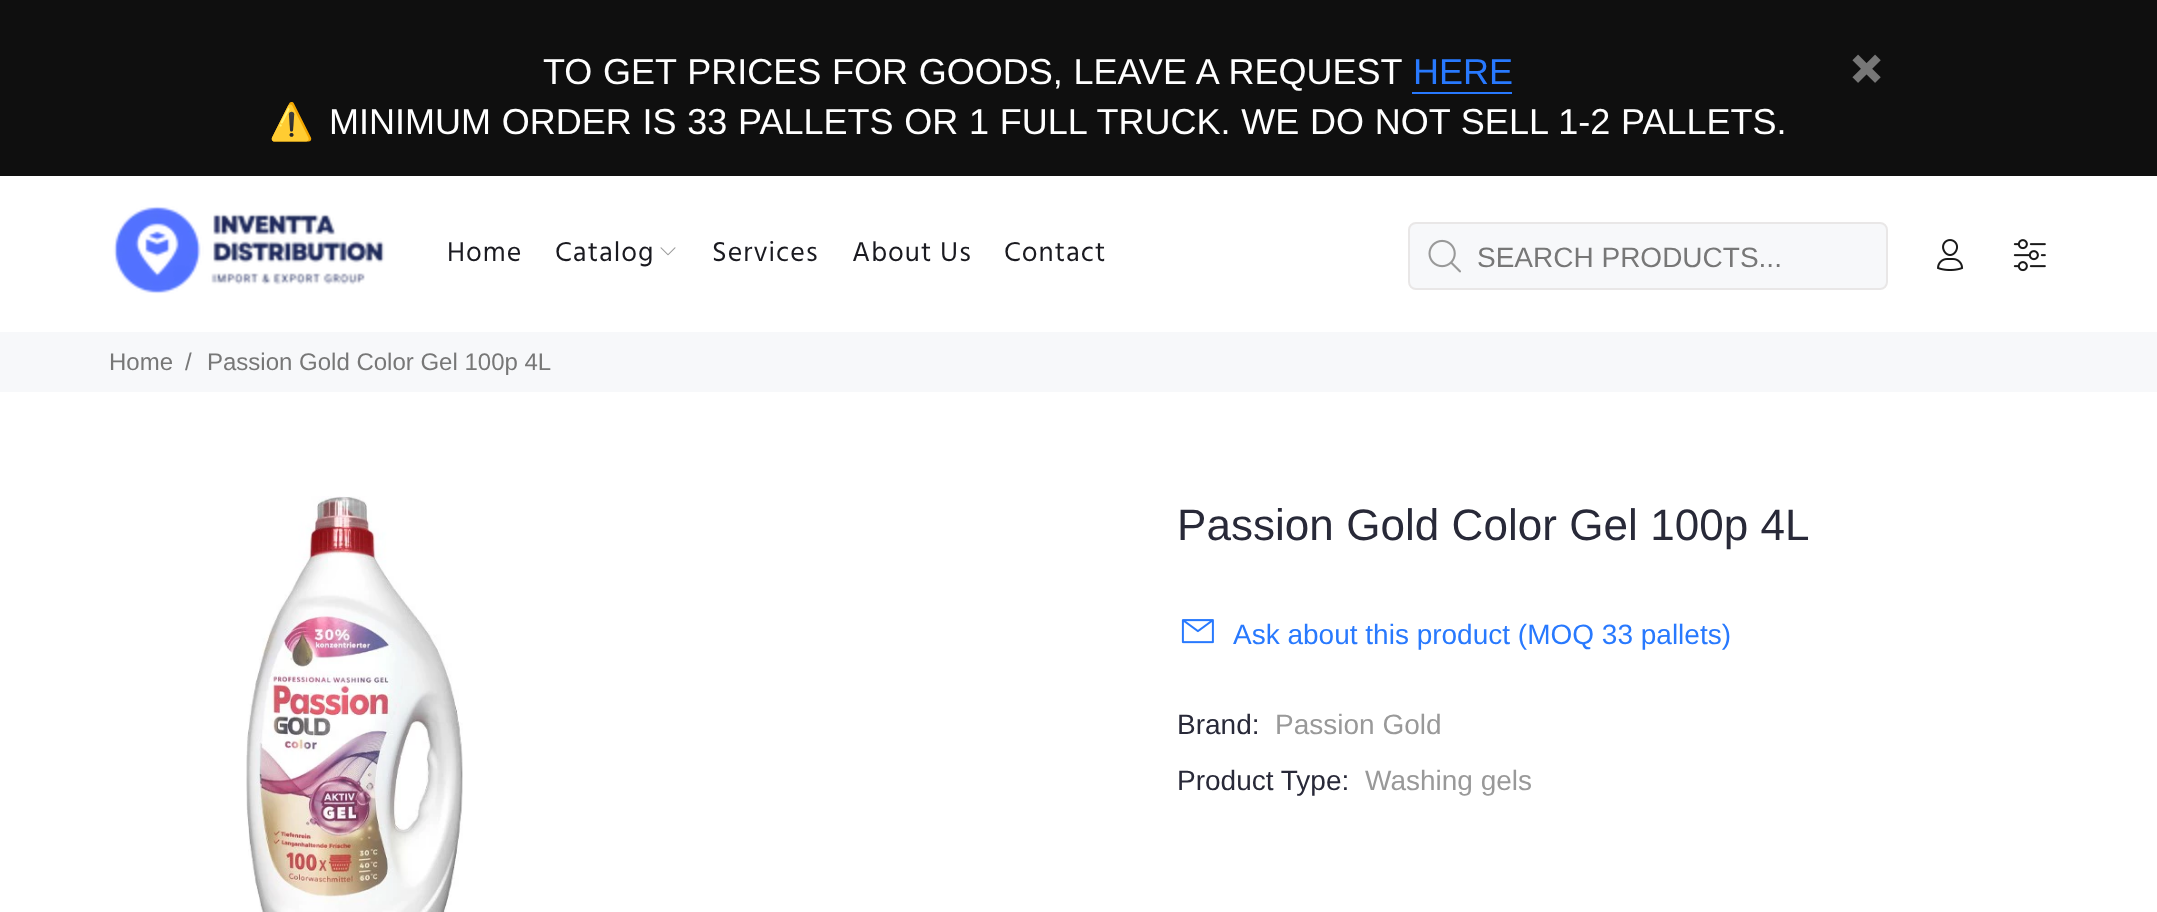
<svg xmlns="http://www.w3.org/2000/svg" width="2157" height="912">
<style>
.a{font:36px Liberation Sans;fill:#fff}
.b{font:36px Liberation Sans;fill:#2879fe}
.c{font:36px Noto Color Emoji;fill:#fff}
.d{font:28px Hind;letter-spacing:1px;fill:#1a1a20}
.e{font:28px Liberation Sans;fill:#777}
.f{font:24px Liberation Sans;fill:#777}
.g{font:44px Liberation Sans;letter-spacing:0.05px;fill:#282938}
.h{font:28px Liberation Sans;fill:#2879fe}
.i{font:28px Liberation Sans;fill:#282938}
.j{font:28px Liberation Sans;fill:#999}
</style>
<rect width="100%" height="100%" fill="#fff"/>
<path fill="#0f0f0f" d="M0 0h2157v176H0z"/>
<path fill="#2879fe" d="M1412 92h100v2H1412z"/>
<image href="1.png" x="1852" y="54" width="29" height="29"/>
<image href="2.png" x="113" y="206" width="272" height="88"/>
<image href="3.png" x="660" y="247" width="16" height="9"/>
<rect fill="#f7f8fa" stroke="#e9e7e7" stroke-width="2" x="1409" y="223" width="478" height="66" rx="7"/>
<image href="4.png" x="1428" y="239" width="33" height="34"/>
<image href="5.png" x="1937" y="239" width="27" height="32"/>
<image href="6.png" x="2013" y="239" width="33" height="33"/>
<path fill="#f7f8fa" d="M0 332h2157v60H0z"/>
<image href="7.png" x="246" y="496" width="217" height="416"/>
<image href="8.png" x="1181" y="619" width="33" height="25"/>
<text class="a" x="543" y="84" word-spacing="0.75">TO GET PRICES FOR GOODS, LEAVE A REQUEST</text>
<text class="b" x="1413" y="84">HERE</text>
<text class="c" x="269" y="134">⚠️</text>
<text class="a" x="329" y="134" word-spacing="0.75">MINIMUM ORDER IS 33 PALLETS OR 1 FULL TRUCK. WE DO NOT SELL 1-2 PALLETS.</text>
<text class="d" x="447" y="261">Home</text>
<text class="d" x="555" y="261">Catalog</text>
<text class="d" x="712" y="261">Services</text>
<text class="d" x="852" y="261">About Us</text>
<text class="d" x="1004" y="261">Contact</text>
<text class="e" x="1477" y="267">SEARCH PRODUCTS...</text>
<text class="f" x="109" y="370">Home</text>
<text class="f" x="185" y="370">/</text>
<text class="f" x="207" y="370">Passion Gold Color Gel 100p 4L</text>
<text class="g" x="1177" y="540">Passion Gold Color Gel 100p 4L</text>
<text class="h" x="1233" y="644">Ask about this product (MOQ 33 pallets)</text>
<text class="i" x="1177" y="734">Brand:</text>
<text class="j" x="1275" y="734">Passion Gold</text>
<text class="i" x="1177" y="790">Product Type:</text>
<text class="j" x="1365" y="790">Washing gels</text>
</svg>
